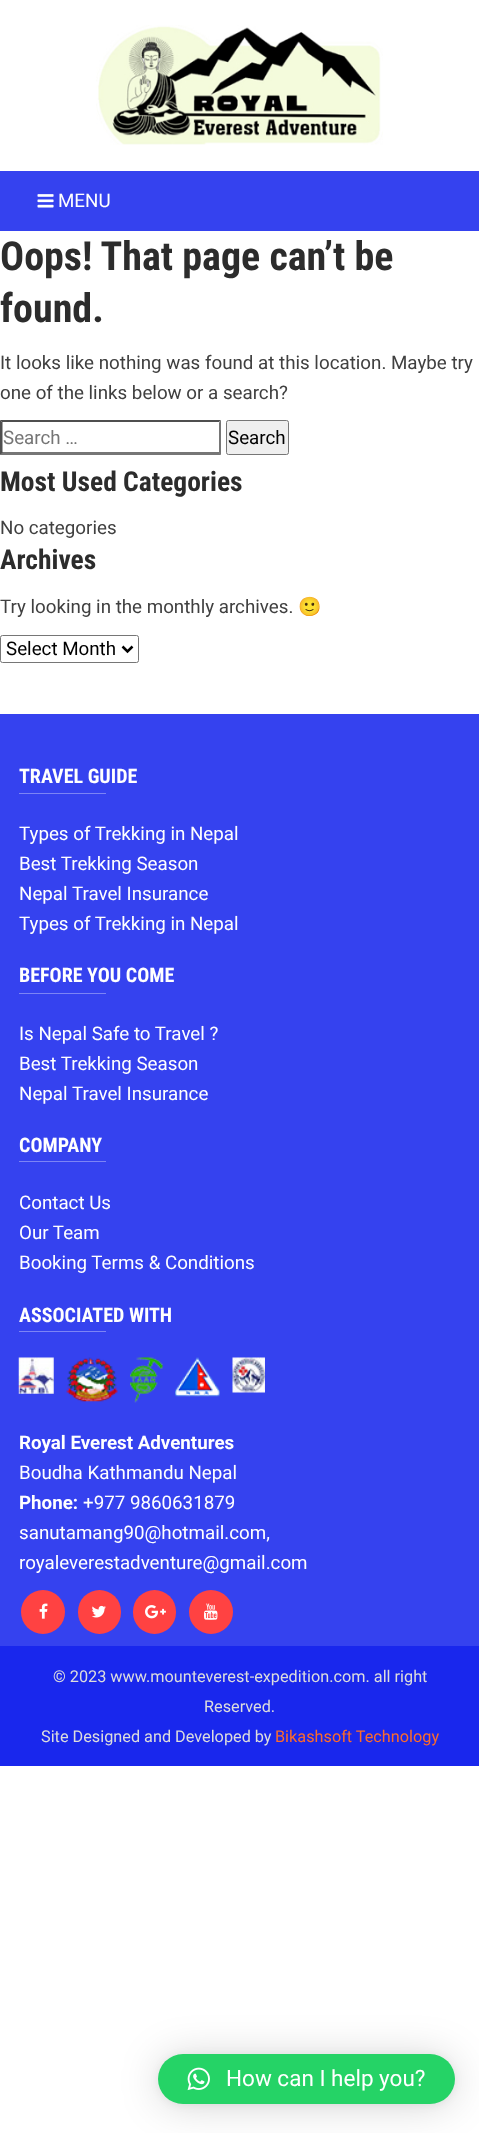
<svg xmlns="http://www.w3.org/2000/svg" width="479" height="2133">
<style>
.a{font:18.75px Roboto;fill:#fff}
.b{font:bold 40px Roboto Condensed;fill:#2c2c2c}
.c{font:18.75px Roboto;fill:#404040}
.d{font:18.75px Roboto;fill:#757575}
.e{font:18.75px Roboto;fill:#000}
.f{font:bold 27.5px Roboto Condensed;fill:#2c2c2c}
.g{font:18.75px Noto Color Emoji;fill:#404040}
.h{font:bold 20px Roboto Condensed;fill:#fff}
.i{font:bold 18.75px Roboto;fill:#fff}
.j{font:16.25px Roboto;fill:#ddd}
.k{font:16.25px Roboto;fill:#fb6b2c}
.l{font:22.5px Roboto;fill:#fff}
</style>
<rect width="100%" height="100%" fill="#fff"/>
<image href="1.png" x="96" y="25" width="287" height="120"/>
<path fill="#3542ef" d="M0 171h479v60H0z"/>
<image href="2.png" x="37" y="194" width="17" height="14"/>
<path fill="#4f4f4f" d="M0 420h221l-2 2h-217z"/>
<path fill="#767676" d="M221 420v35l-2-2.5v-30z"/>
<path fill="#767676" d="M221 455h-221l2-3h217z"/>
<path fill="#4f4f4f" d="M0 455v-35l2.5 2.5v30z"/>
<rect fill="#efefef" stroke="#767676" x="226.5" y="420.5" width="62" height="34" rx="2"/>
<rect fill="none" stroke="#767676" x="0.5" y="635.5" width="138" height="27" rx="2"/>
<path fill="none" stroke="#000" stroke-width="2.5" d="M122.5 646.5l5 5l5-5"/>
<path fill="#3542ef" d="M0 714h479v932H0z"/>
<path fill="#7c84f5" d="M19 793h87v1H19z"/>
<path fill="#7c84f5" d="M19 993h87v1H19z"/>
<path fill="#7c84f5" d="M19 1161h87v1H19z"/>
<path fill="#7c84f5" d="M19 1331h87v1H19z"/>
<image href="3.png" x="18" y="1357" width="36" height="37"/>
<image href="4.png" x="66" y="1357" width="52" height="45"/>
<image href="5.png" x="130" y="1357" width="33" height="46"/>
<image href="6.png" x="175" y="1357" width="45" height="40"/>
<image href="7.png" x="232" y="1357" width="33" height="36"/>
<circle fill="#ff4242" cx="43" cy="1612" r="22"/>
<image href="8.png" x="39" y="1603" width="9" height="16"/>
<rect fill="#ff4242" x="78" y="1590" width="43" height="44" rx="21.5"/>
<image href="9.png" x="91" y="1605" width="15" height="13"/>
<rect fill="#ff4242" x="133" y="1590" width="43" height="44" rx="21.5"/>
<image href="10.png" x="145" y="1605" width="21" height="14"/>
<circle fill="#ff4242" cx="211" cy="1612" r="22"/>
<image href="11.png" x="204" y="1603" width="14" height="17"/>
<path fill="#1927ed" d="M0 1646h479v120H0z"/>
<rect fill="#00000029" filter="blur(20px)" x="158" y="2056" width="297" height="50" rx="25"/>
<rect fill="#0000000f" filter="blur(4px)" x="158" y="2055" width="297" height="50" rx="25"/>
<rect fill="#25d366" x="158" y="2054" width="297" height="50" rx="25"/>
<image href="12.png" x="187" y="2067" width="23" height="24"/>
<text class="a" x="58" y="207">MENU</text>
<text class="b" x="0" y="270">Oops! That page can’t be</text>
<text class="b" x="0" y="322">found.</text>
<text class="c" x="0" y="369">It looks like nothing was found at this location. Maybe try</text>
<text class="c" x="0" y="399">one of the links below or a search?</text>
<text class="d" x="3" y="444">Search …</text>
<text class="e" x="228" y="444">Search</text>
<text class="f" x="0" y="491">Most Used Categories</text>
<text class="c" x="0" y="534">No categories</text>
<text class="f" x="0" y="569">Archives</text>
<text class="c" x="0" y="613">Try looking in the monthly archives.</text>
<text class="g" x="298" y="613">🙂</text>
<text class="e" x="6" y="655">Select Month</text>
<text class="h" x="19" y="783">TRAVEL GUIDE</text>
<text class="a" x="19" y="840">Types of Trekking in Nepal</text>
<text class="a" x="19" y="870">Best Trekking Season</text>
<text class="a" x="19" y="900">Nepal Travel Insurance</text>
<text class="a" x="19" y="930">Types of Trekking in Nepal</text>
<text class="h" x="19" y="982">BEFORE YOU COME</text>
<text class="a" x="19" y="1040">Is Nepal Safe to Travel ?</text>
<text class="a" x="19" y="1070">Best Trekking Season</text>
<text class="a" x="19" y="1100">Nepal Travel Insurance</text>
<text class="h" x="19" y="1152">COMPANY</text>
<text class="a" x="19" y="1209">Contact Us</text>
<text class="a" x="19" y="1239">Our Team</text>
<text class="a" x="19" y="1269">Booking Terms &amp; Conditions</text>
<text class="h" x="19" y="1322">ASSOCIATED WITH</text>
<text class="i" x="19" y="1449">Royal Everest Adventures</text>
<text class="a" x="19" y="1479">Boudha Kathmandu Nepal</text>
<text class="i" x="19" y="1509">Phone:</text>
<text class="a" x="83" y="1509">+977 9860631879</text>
<text class="a" x="19" y="1539">sanutamang90@hotmail.com,</text>
<text class="a" x="19" y="1569">royaleverestadventure@gmail.com</text>
<text class="j" x="53" y="1682">© 2023 www.mounteverest-expedition.com. all right</text>
<text class="j" x="204" y="1712">Reserved.</text>
<text class="j" x="41" y="1742">Site Designed and Developed by</text>
<text class="k" x="275" y="1742">Bikashsoft Technology</text>
<text class="l" x="226" y="2086">How can I help you?</text>
</svg>
